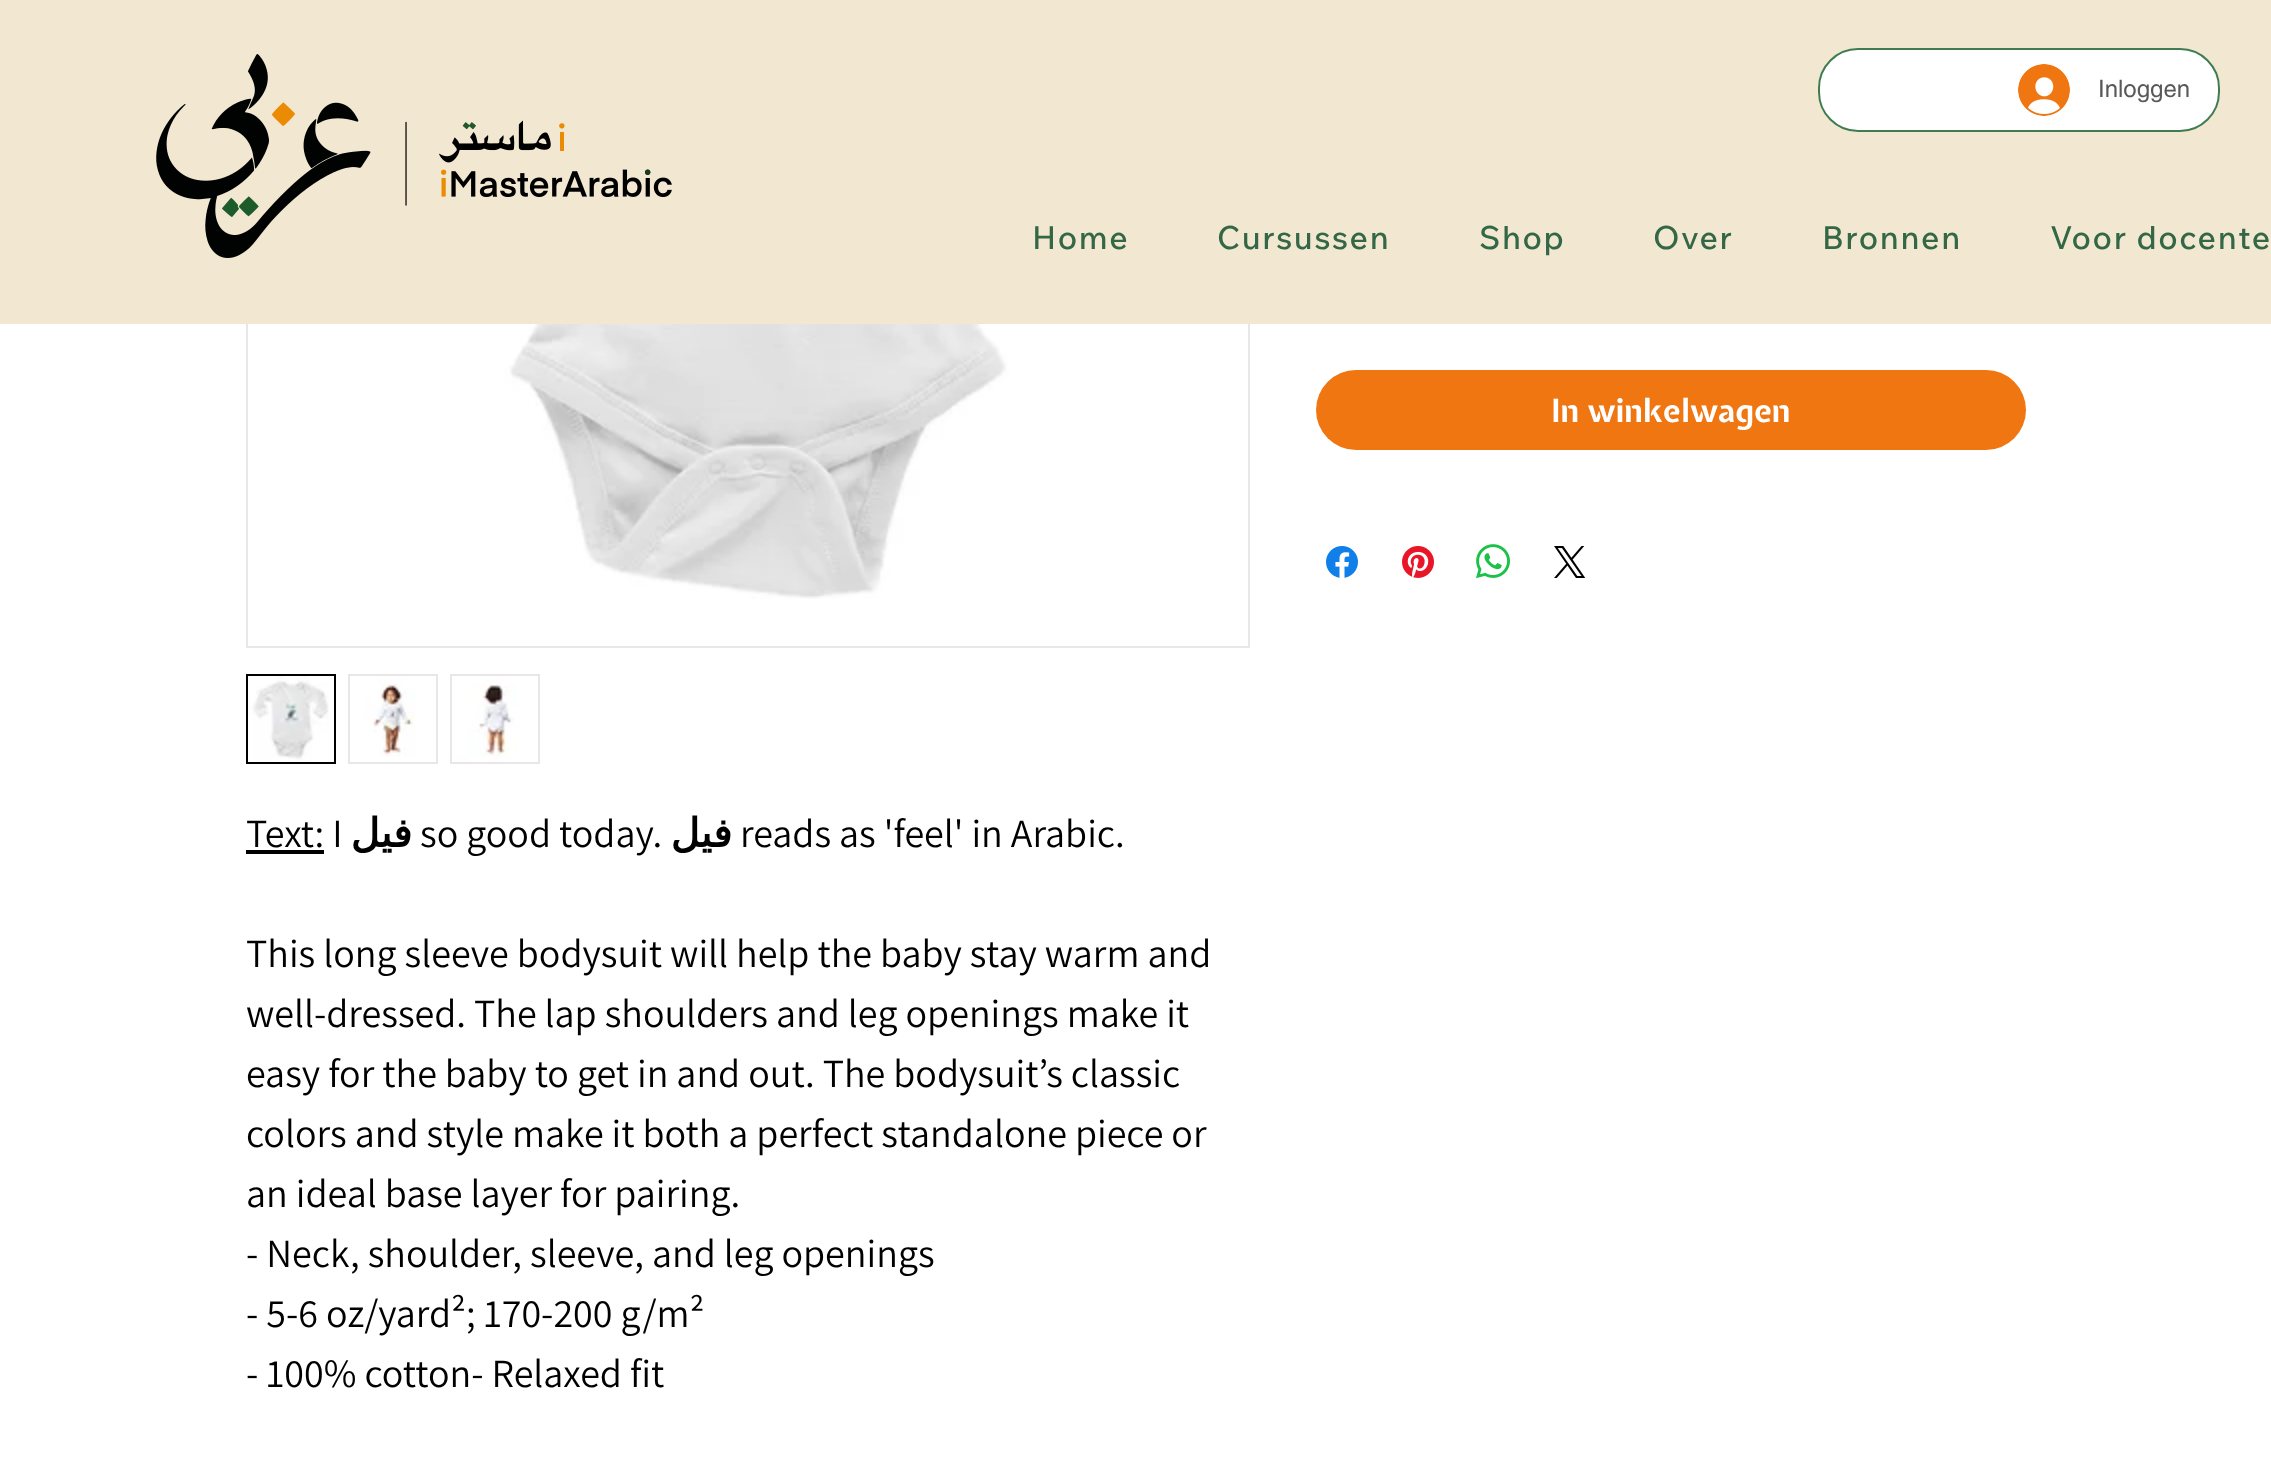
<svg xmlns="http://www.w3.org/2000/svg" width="2271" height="1478">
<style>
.a{font:24px helvetica;fill:#595959}
.b{font:500 32px Wix Madefor Text;letter-spacing:1.6px;fill:#336746}
.c{font:bold 32px Expletus Sans;fill:#fff}
.d{font:40px Assistant;fill:#000}
.e{font:bold 40px DejaVu Sans;direction:rtl;fill:#000}
</style>
<rect width="100%" height="100%" fill="#fff"/>
<path fill="none" stroke="#e8e6e6" stroke-width="2" d="M247 -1h1002v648H247z"/>
<path fill="#f2e8d1" d="M0 0h2271v324H0z"/>
<image href="1.png" x="156" y="54" width="516" height="204"/>
<rect fill="#fff" stroke="#407c51" stroke-width="2" x="1819" y="49" width="400" height="82" rx="39"/>
<image href="2.png" x="2018" y="64" width="52" height="52"/>
<rect fill="#f07611" x="1316" y="370" width="710" height="80" rx="40"/>
<image href="3.png" x="1326" y="546" width="32" height="32"/>
<image href="4.png" x="1402" y="546" width="32" height="32"/>
<image href="5.png" x="1476" y="544" width="34" height="35"/>
<image href="6.png" x="1554" y="546" width="32" height="32"/>
<image href="7.png" x="317" y="324" width="864" height="275"/>
<path fill="none" stroke="#000" stroke-width="2" d="M247 675h88v88H247z"/>
<image href="8.png" x="248" y="676" width="86" height="86"/>
<path fill="#e8e6e6" d="M348 674h90v90H348z"/>
<image href="9.png" x="350" y="676" width="86" height="86"/>
<path fill="#e8e6e6" d="M450 674h90v90H450z"/>
<image href="10.png" x="452" y="676" width="86" height="86"/>
<path fill="#000" d="M246 850h78v4H246z"/>
<text class="a" x="2098" y="97">Inloggen</text>
<text class="b" x="1032" y="249">Home</text>
<text class="b" x="1217" y="249">Cursussen</text>
<text class="b" x="1479" y="249">Shop</text>
<text class="b" x="1653" y="249">Over</text>
<text class="b" x="1822" y="249">Bronnen</text>
<text class="b" x="2050" y="249">Voor docente</text>
<text class="c" x="1551" y="422">In winkelwagen</text>
<text class="d" x="246" y="847">Text: I</text>
<text class="e" x="412" y="847">فيل</text>
<text class="d" x="420" y="847">so good today.</text>
<text class="e" x="732" y="847">فيل</text>
<text class="d" x="740" y="847">reads as 'feel' in Arabic.</text>
<text class="d" x="246" y="967">This long sleeve bodysuit will help the baby stay warm and</text>
<text class="d" x="246" y="1027">well-dressed. The lap shoulders and leg openings make it</text>
<text class="d" x="246" y="1087">easy for the baby to get in and out. The bodysuit’s classic</text>
<text class="d" x="246" y="1147">colors and style make it both a perfect standalone piece or</text>
<text class="d" x="246" y="1207">an ideal base layer for pairing.</text>
<text class="d" x="246" y="1267">- Neck, shoulder, sleeve, and leg openings</text>
<text class="d" x="246" y="1327">- 5-6 oz/yard²; 170-200 g/m²</text>
<text class="d" x="246" y="1387">- 100% cotton- Relaxed fit</text>
</svg>
